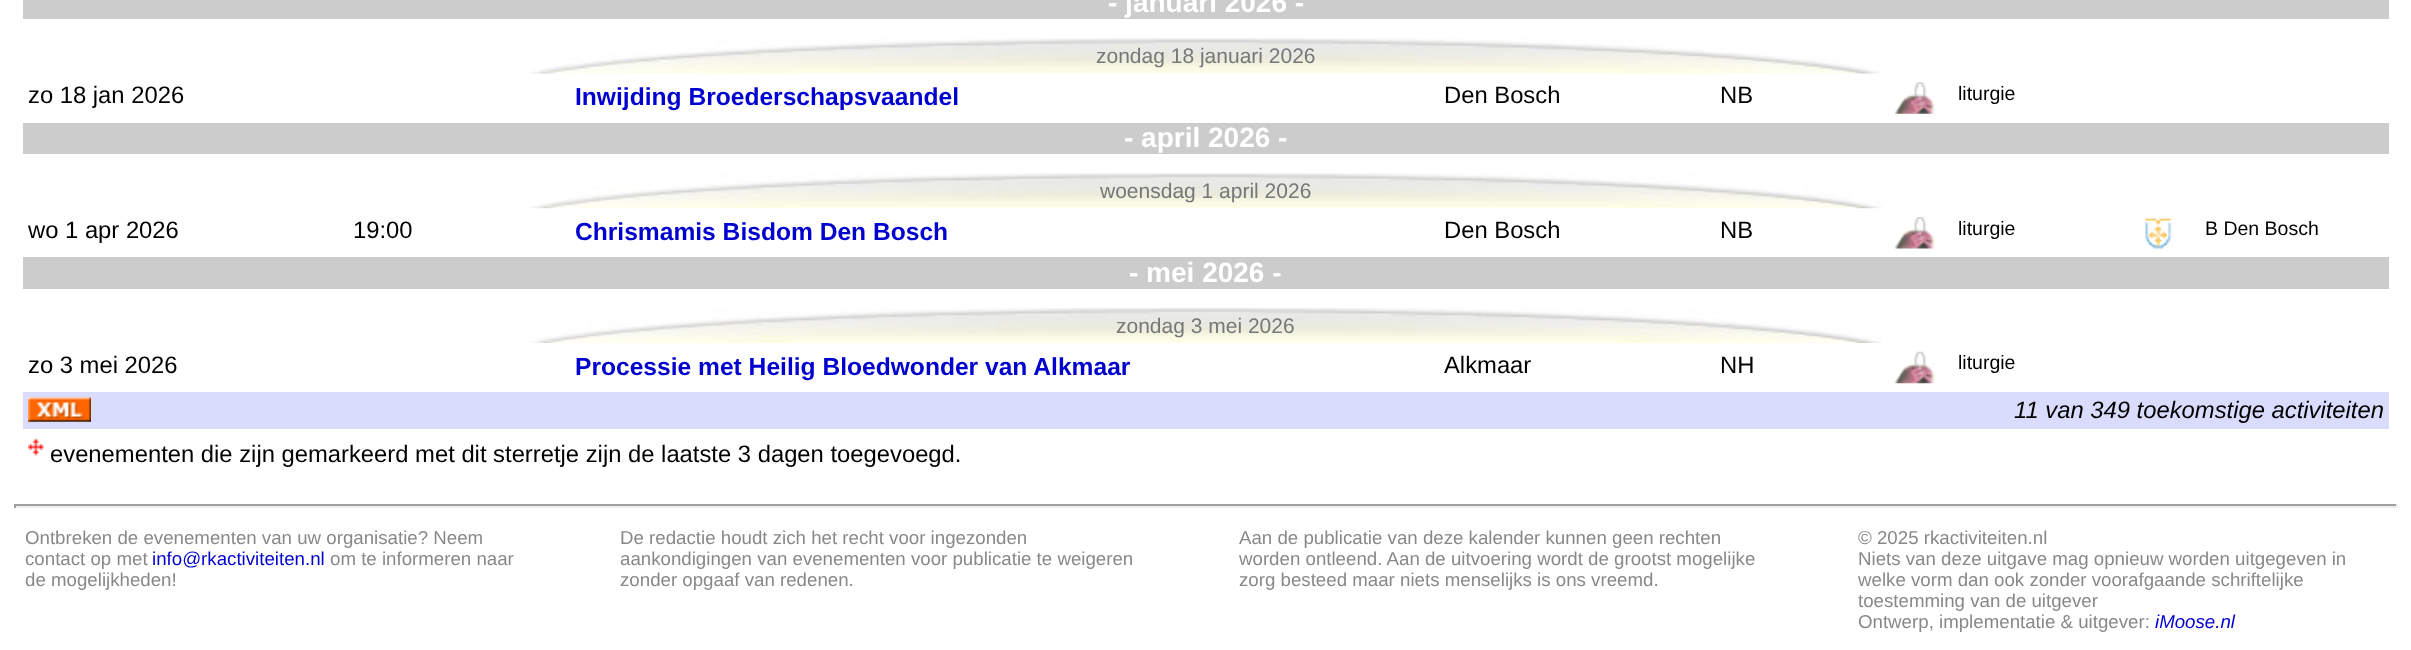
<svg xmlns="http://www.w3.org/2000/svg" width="2411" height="650">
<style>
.a{font:bold 28px Liberation Sans;fill:#fff}
.b{font:21px Liberation Sans;fill:#777}
.c{font:23.8px Liberation Sans;fill:#000}
.d{font:bold 24.6px Liberation Sans;fill:#0000cf}
.e{font:19.5px Liberation Sans;fill:#000}
.f{font:italic 23.8px Liberation Sans;fill:#000}
.g{font:18.7px Liberation Sans;fill:#888}
.h{font:18.7px Liberation Sans;fill:#0000cf}
.i{font:italic 18.7px Liberation Sans;fill:#0000cf}
</style>
<rect width="100%" height="100%" fill="#fff"/>
<path fill="#ccc" d="M23 0h2366v19H23z"/>
<image href="1.png" x="530" y="38" width="1352" height="36"/>
<image href="2.png" x="1894" y="82" width="41" height="32"/>
<path fill="#ccc" d="M23 123h2366v31H23z"/>
<image href="3.png" x="529" y="173" width="1353" height="36"/>
<image href="4.png" x="1894" y="217" width="41" height="32"/>
<image href="5.png" x="2143" y="218" width="30" height="31"/>
<path fill="#ccc" d="M23 257h2366v32H23z"/>
<image href="6.png" x="529" y="308" width="1353" height="35"/>
<image href="7.png" x="1894" y="351" width="41" height="33"/>
<path fill="#dadcfe" d="M23 392h2366v37H23z"/>
<image href="8.png" x="28" y="397" width="63" height="25"/>
<image href="9.png" x="28" y="438" width="16" height="18"/>
<path fill="#9f9f9f" d="M14 504h2384v2H14z"/>
<path fill="#eee" d="M2396 504h2v4H2396z"/>
<path fill="#eee" d="M14 506h2384v2H14z"/>
<path fill="#9f9f9f" d="M14 504h2v4H14z"/>
<text class="a" x="1108" y="12">- januari 2026 -</text>
<text class="b" x="1096" y="63">zondag 18 januari 2026</text>
<text class="c" x="28" y="103">zo 18 jan 2026</text>
<text class="d" x="575" y="105">Inwijding Broederschapsvaandel</text>
<text class="c" x="1444" y="103">Den Bosch</text>
<text class="c" x="1720" y="103">NB</text>
<text class="e" x="1958" y="100">liturgie</text>
<text class="a" x="1124" y="147">- april 2026 -</text>
<text class="b" x="1100" y="198">woensdag 1 april 2026</text>
<text class="c" x="28" y="238">wo 1 apr 2026</text>
<text class="c" x="353" y="238">19:00</text>
<text class="d" x="575" y="240">Chrismamis Bisdom Den Bosch</text>
<text class="c" x="1444" y="238">Den Bosch</text>
<text class="c" x="1720" y="238">NB</text>
<text class="e" x="1958" y="235">liturgie</text>
<text class="e" x="2205" y="235">B Den Bosch</text>
<text class="a" x="1129" y="282">- mei 2026 -</text>
<text class="b" x="1116" y="333">zondag 3 mei 2026</text>
<text class="c" x="28" y="373">zo 3 mei 2026</text>
<text class="d" x="575" y="375">Processie met Heilig Bloedwonder van Alkmaar</text>
<text class="c" x="1444" y="373">Alkmaar</text>
<text class="c" x="1720" y="373">NH</text>
<text class="e" x="1958" y="369">liturgie</text>
<text class="f" x="2014" y="418">11 van 349 toekomstige activiteiten</text>
<text class="c" x="50" y="462">evenementen die zijn gemarkeerd met dit sterretje zijn de laatste 3 dagen toegevoegd.</text>
<text class="g" x="25" y="544">Ontbreken de evenementen van uw organisatie? Neem</text>
<text class="g" x="25" y="565">contact op met</text>
<text class="h" x="152" y="565">info@rkactiviteiten.nl</text>
<text class="g" x="330" y="565">om te informeren naar</text>
<text class="g" x="25" y="586">de mogelijkheden!</text>
<text class="g" x="620" y="544">De redactie houdt zich het recht voor ingezonden</text>
<text class="g" x="620" y="565">aankondigingen van evenementen voor publicatie te weigeren</text>
<text class="g" x="620" y="586">zonder opgaaf van redenen.</text>
<text class="g" x="1239" y="544">Aan de publicatie van deze kalender kunnen geen rechten</text>
<text class="g" x="1239" y="565">worden ontleend. Aan de uitvoering wordt de grootst mogelijke</text>
<text class="g" x="1239" y="586">zorg besteed maar niets menselijks is ons vreemd.</text>
<text class="g" x="1858" y="544">© 2025 rkactiviteiten.nl</text>
<text class="g" x="1858" y="565">Niets van deze uitgave mag opnieuw worden uitgegeven in</text>
<text class="g" x="1858" y="586">welke vorm dan ook zonder voorafgaande schriftelijke</text>
<text class="g" x="1858" y="607">toestemming van de uitgever</text>
<text class="g" x="1858" y="628">Ontwerp, implementatie &amp; uitgever:</text>
<text class="i" x="2155" y="628">iMoose.nl</text>
</svg>
